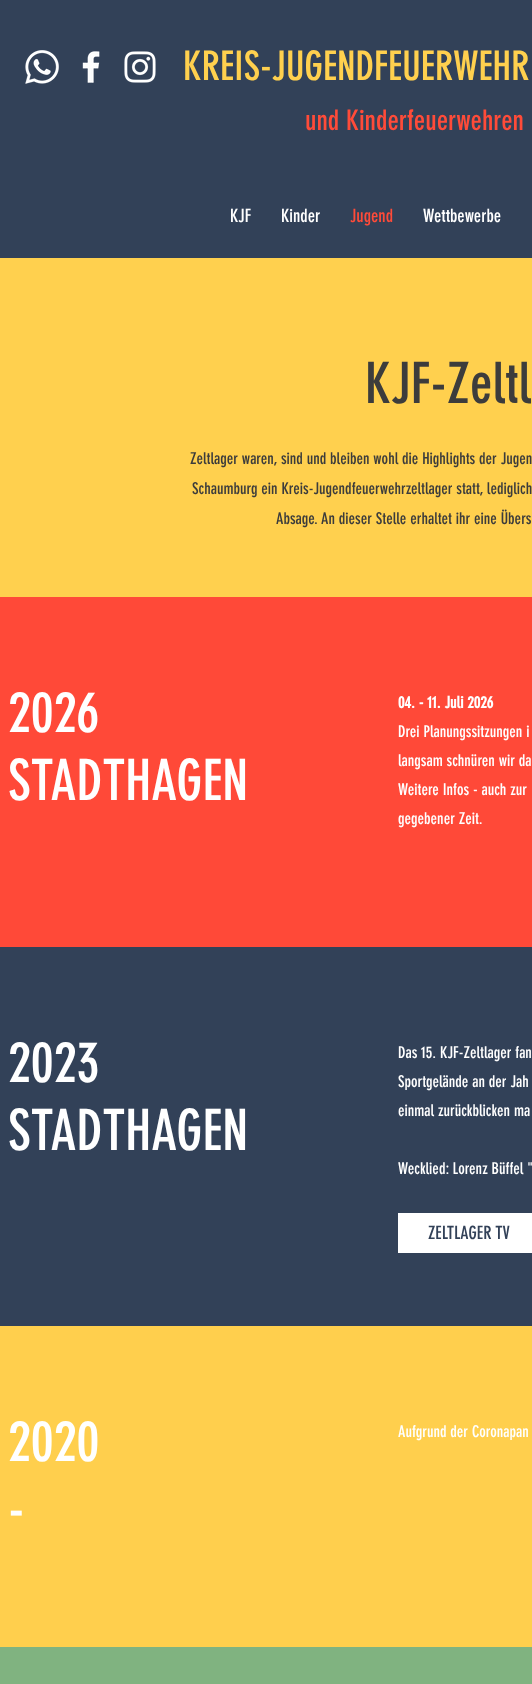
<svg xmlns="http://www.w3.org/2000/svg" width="532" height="1684">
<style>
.a{font:40px 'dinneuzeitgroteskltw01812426';fill:#ffd04e}
.b{font:28px 'dinneuzeitgroteskltw01812426';fill:#ff4b39}
.c{font:18px 'dinneuzeitgroteskltw01812426';fill:#fff}
.d{font:18px 'dinneuzeitgroteskltw01812426';fill:#ff4b39}
.e{font:56px 'dinneuzeitgroteskltw01812426';fill:#3c3c3c}
.f{font:16px 'dinneuzeitgroteskltw01812426';fill:#3c3c3c}
.g{font:56px 'dinneuzeitgroteskltw01812426';fill:#fff}
.h{font:bold 16px 'dinneuzeitgroteskltw01812426';fill:#fff}
.i{font:16px 'dinneuzeitgroteskltw01812426';fill:#fff}
.j{font:18px 'dinneuzeitgroteskltw01812426';fill:#324158}
</style>
<rect width="100%" height="100%" fill="#324158"/>
<image href="1.png" x="25" y="50" width="34" height="34"/>
<image href="2.png" x="82" y="51" width="18" height="32"/>
<image href="3.png" x="124" y="51" width="32" height="32"/>
<path fill="#ffd04e" d="M0 258h532v339H0z"/>
<path fill="#ff4938" d="M0 597h532v350H0z"/>
<path fill="#fff" d="M398 1213h134v40H398z"/>
<path fill="#ffcf4d" d="M0 1326h532v321H0z"/>
<path fill="#80b380" d="M0 1647h532v37H0z"/>
<text class="a" x="183" y="80">KREIS-JUGENDFEUERWEHR</text>
<text class="b" x="305" y="130">und Kinderfeuerwehren</text>
<text class="c" x="230" y="222">KJF</text>
<text class="c" x="281" y="222">Kinder</text>
<text class="d" x="350" y="222">Jugend</text>
<text class="c" x="423" y="222">Wettbewerbe</text>
<text class="e" x="365" y="403">KJF-Zeltl</text>
<text class="f" x="190" y="464">Zeltlager waren, sind und bleiben wohl die Highlights der Jugen</text>
<text class="f" x="192" y="494">Schaumburg ein Kreis-Jugendfeuerwehrzeltlager statt, lediglich</text>
<text class="f" x="276" y="524">Absage. An dieser Stelle erhaltet ihr eine Übers</text>
<text class="g" x="8" y="732">2026</text>
<text class="g" x="8" y="800">STADTHAGEN</text>
<text class="h" x="398" y="708">04. - 11. Juli 2026</text>
<text class="i" x="398" y="737">Drei Planungssitzungen i</text>
<text class="i" x="398" y="766">langsam schnüren wir da</text>
<text class="i" x="398" y="795">Weitere Infos - auch zur</text>
<text class="i" x="398" y="824">gegebener Zeit.</text>
<text class="g" x="8" y="1082">2023</text>
<text class="g" x="8" y="1150">STADTHAGEN</text>
<text class="i" x="398" y="1058">Das 15. KJF-Zeltlager fan</text>
<text class="i" x="398" y="1087">Sportgelände an der Jah</text>
<text class="i" x="398" y="1116">einmal zurückblicken ma</text>
<text class="i" x="398" y="1174">Wecklied: Lorenz Büffel "</text>
<text class="j" x="428" y="1239">ZELTLAGER TV</text>
<text class="g" x="8" y="1461">2020</text>
<text class="g" x="8" y="1529">-</text>
<text class="i" x="398" y="1437">Aufgrund der Coronapan</text>
</svg>
